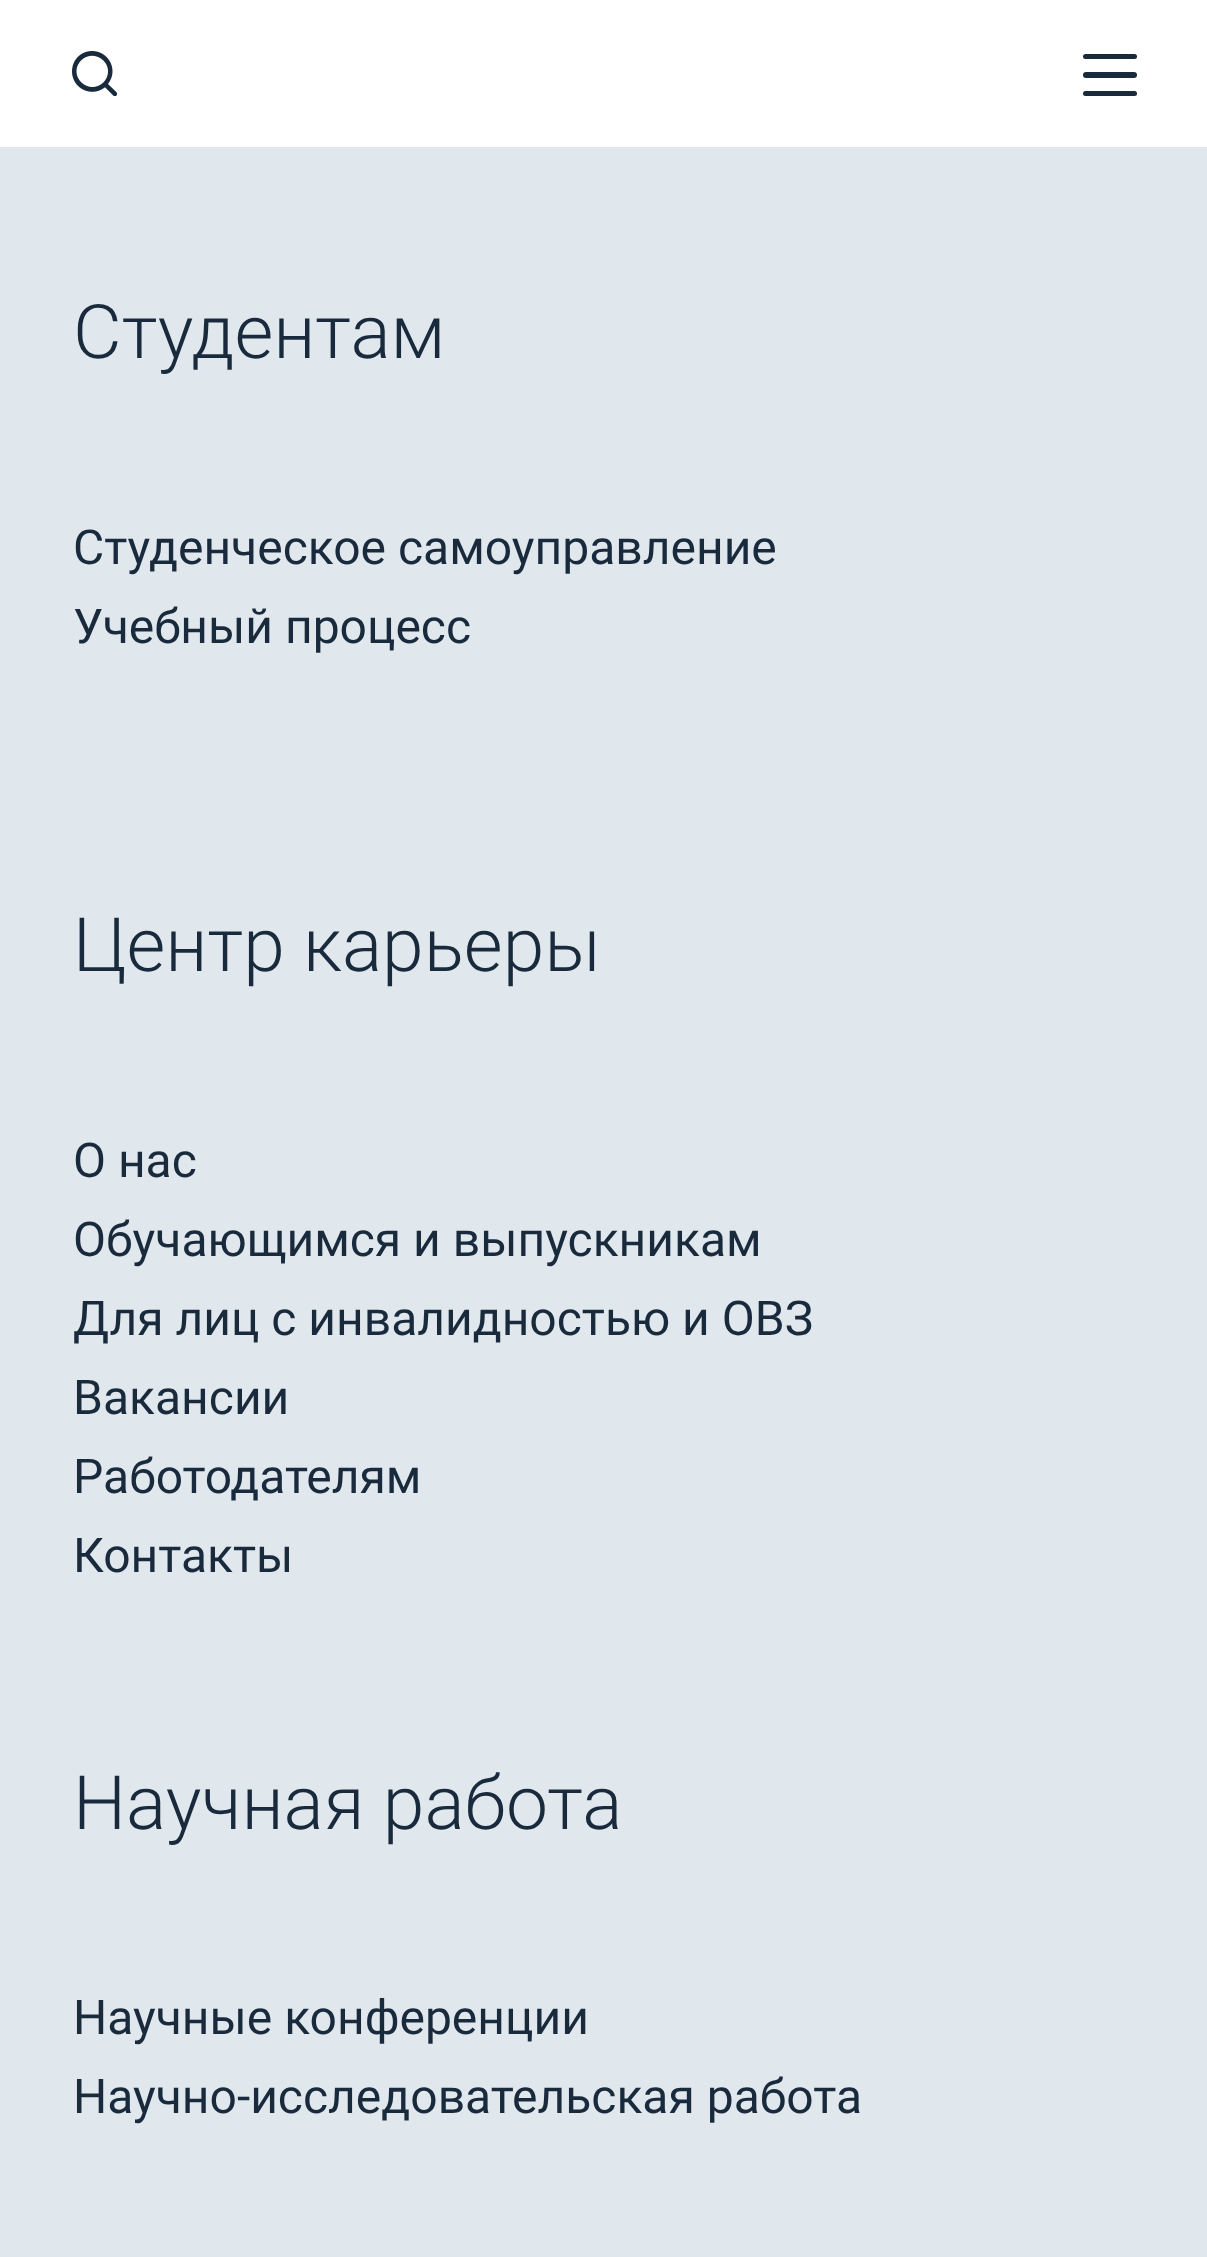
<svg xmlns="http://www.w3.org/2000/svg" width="1207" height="2257">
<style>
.a{font:300 75px Roboto;fill:#192a3d}
.b{font:48px Roboto;fill:#192a3d}
</style>
<rect width="100%" height="100%" fill="#e1e8ed"/>
<path fill="#fff" d="M0 0h1207v147H0z"/>
<image href="1.png" x="72" y="51" width="45" height="45"/>
<rect fill="#192a3d" x="1083" y="54" width="54" height="5" rx="2.5"/>
<rect fill="#192a3d" x="1083" y="72" width="54" height="6" rx="3"/>
<rect fill="#192a3d" x="1083" y="91" width="54" height="5" rx="2.5"/>
<text class="a" x="73" y="358">Студентам</text>
<text class="b" x="73" y="564">Студенческое самоуправление</text>
<text class="b" x="73" y="643">Учебный процесс</text>
<text class="a" x="73" y="971">Центр карьеры</text>
<text class="b" x="73" y="1177">О нас</text>
<text class="b" x="73" y="1256">Обучающимся и выпускникам</text>
<text class="b" x="73" y="1335">Для лиц с инвалидностью и ОВЗ</text>
<text class="b" x="73" y="1414">Вакансии</text>
<text class="b" x="73" y="1493">Работодателям</text>
<text class="b" x="73" y="1572">Контакты</text>
<text class="a" x="73" y="1829">Научная работа</text>
<text class="b" x="73" y="2034">Научные конференции</text>
<text class="b" x="73" y="2113">Научно-исследовательская работа</text>
</svg>
